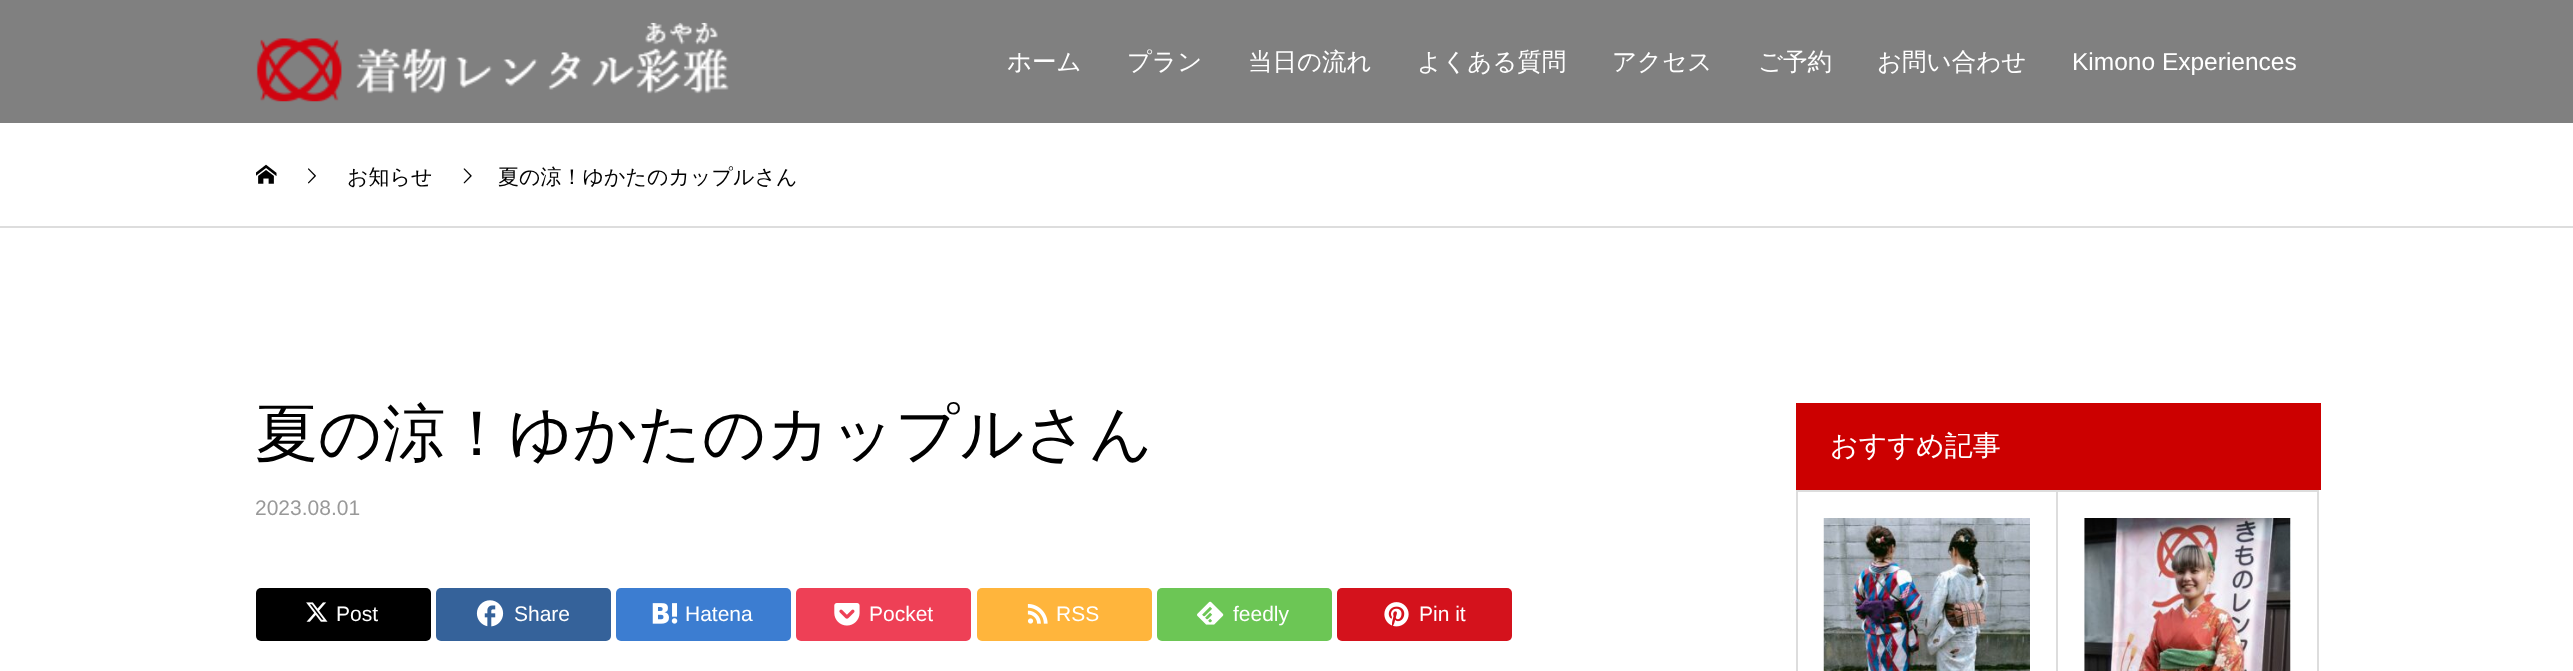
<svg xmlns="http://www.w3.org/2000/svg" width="2573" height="671">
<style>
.a{font:500 24.5px WenQuanYi Zen Hei;fill:#fff}
.b{font:24.5px Liberation Sans;fill:#fff}
.c{font:500 21px WenQuanYi Zen Hei;fill:#000}
.d{font:500 63px WenQuanYi Zen Hei;fill:#000}
.e{font:21px Liberation Sans;fill:#999}
.f{font:21px Liberation Sans;fill:#fff}
.g{font:500 28px WenQuanYi Zen Hei;fill:#fff}
</style>
<defs>
<clipPath id="clip1"><path d="M256 228h2065v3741H256z"/></clipPath>
</defs>
<rect width="100%" height="100%" fill="#fff"/>
<path fill="#808080" d="M0 0h2573v123H0z"/>
<image href="1.png" x="256" y="22" width="473" height="80"/>
<path fill="#ddd" d="M0 226h2573v2H0z"/>
<image href="2.png" x="256" y="164" width="21" height="20"/>
<image href="3.png" x="308" y="168" width="8" height="16"/>
<image href="4.png" x="463" y="168" width="9" height="16"/>
<rect fill="#000" x="256" y="588" width="175" height="53" rx="5"/>
<image href="5.png" x="306" y="602" width="22" height="20"/>
<rect fill="#35629a" x="436" y="588" width="175" height="53" rx="5"/>
<image href="6.png" x="476" y="600" width="28" height="27"/>
<rect fill="#3c7dd1" x="616" y="588" width="175" height="53" rx="5"/>
<image href="7.png" x="652" y="603" width="26" height="21"/>
<rect fill="#ee4056" x="796" y="588" width="175" height="53" rx="5"/>
<image href="8.png" x="834" y="603" width="26" height="23"/>
<rect fill="#ffb53c" x="977" y="588" width="175" height="53" rx="5"/>
<image href="9.png" x="1027" y="604" width="21" height="20"/>
<rect fill="#6cc655" x="1157" y="588" width="175" height="53" rx="5"/>
<image href="10.png" x="1197" y="601" width="27" height="24"/>
<rect fill="#d4121c" x="1337" y="588" width="175" height="53" rx="5"/>
<image href="11.png" x="1384" y="602" width="25" height="25"/>
<path fill="#c00" d="M1796 403h525v87H1796z"/>
<path fill="none" stroke="#ddd" stroke-width="2" d="M1797 491h260v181H1797z"/>
<image href="12.png" x="1823" y="518" width="207" height="153"/>
<path fill="none" stroke="#ddd" stroke-width="2" d="M2057 491h261v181H2057z"/>
<image href="13.png" x="2084" y="518" width="207" height="153"/>
<text class="a" x="1007" y="70">ホーム</text>
<text class="a" x="1127" y="70">プラン</text>
<text class="a" x="1248" y="70">当日の流れ</text>
<text class="a" x="1417" y="70">よくある質問</text>
<text class="a" x="1612" y="70">アクセス</text>
<text class="a" x="1758" y="70">ご予約</text>
<text class="a" x="1877" y="70">お問い合わせ</text>
<text class="b" x="2072" y="70">Kimono Experiences</text>
<text class="c" x="347" y="184">お知らせ</text>
<text class="c" x="498" y="184">夏の涼！ゆかたのカップルさん</text>
<text class="d" x="255" y="455">夏の涼！ゆかたのカップルさん</text>
<g clip-path="url(#clip1)">
<text class="e" x="255" y="515">2023.08.01</text>
</g>
<text class="f" x="336" y="621">Post</text>
<text class="f" x="514" y="621">Share</text>
<text class="f" x="685" y="621">Hatena</text>
<text class="f" x="869" y="621">Pocket</text>
<text class="f" x="1056" y="621">RSS</text>
<text class="f" x="1233" y="621">feedly</text>
<text class="f" x="1419" y="621">Pin it</text>
<text class="g" x="1830" y="455">おすすめ記事</text>
</svg>
